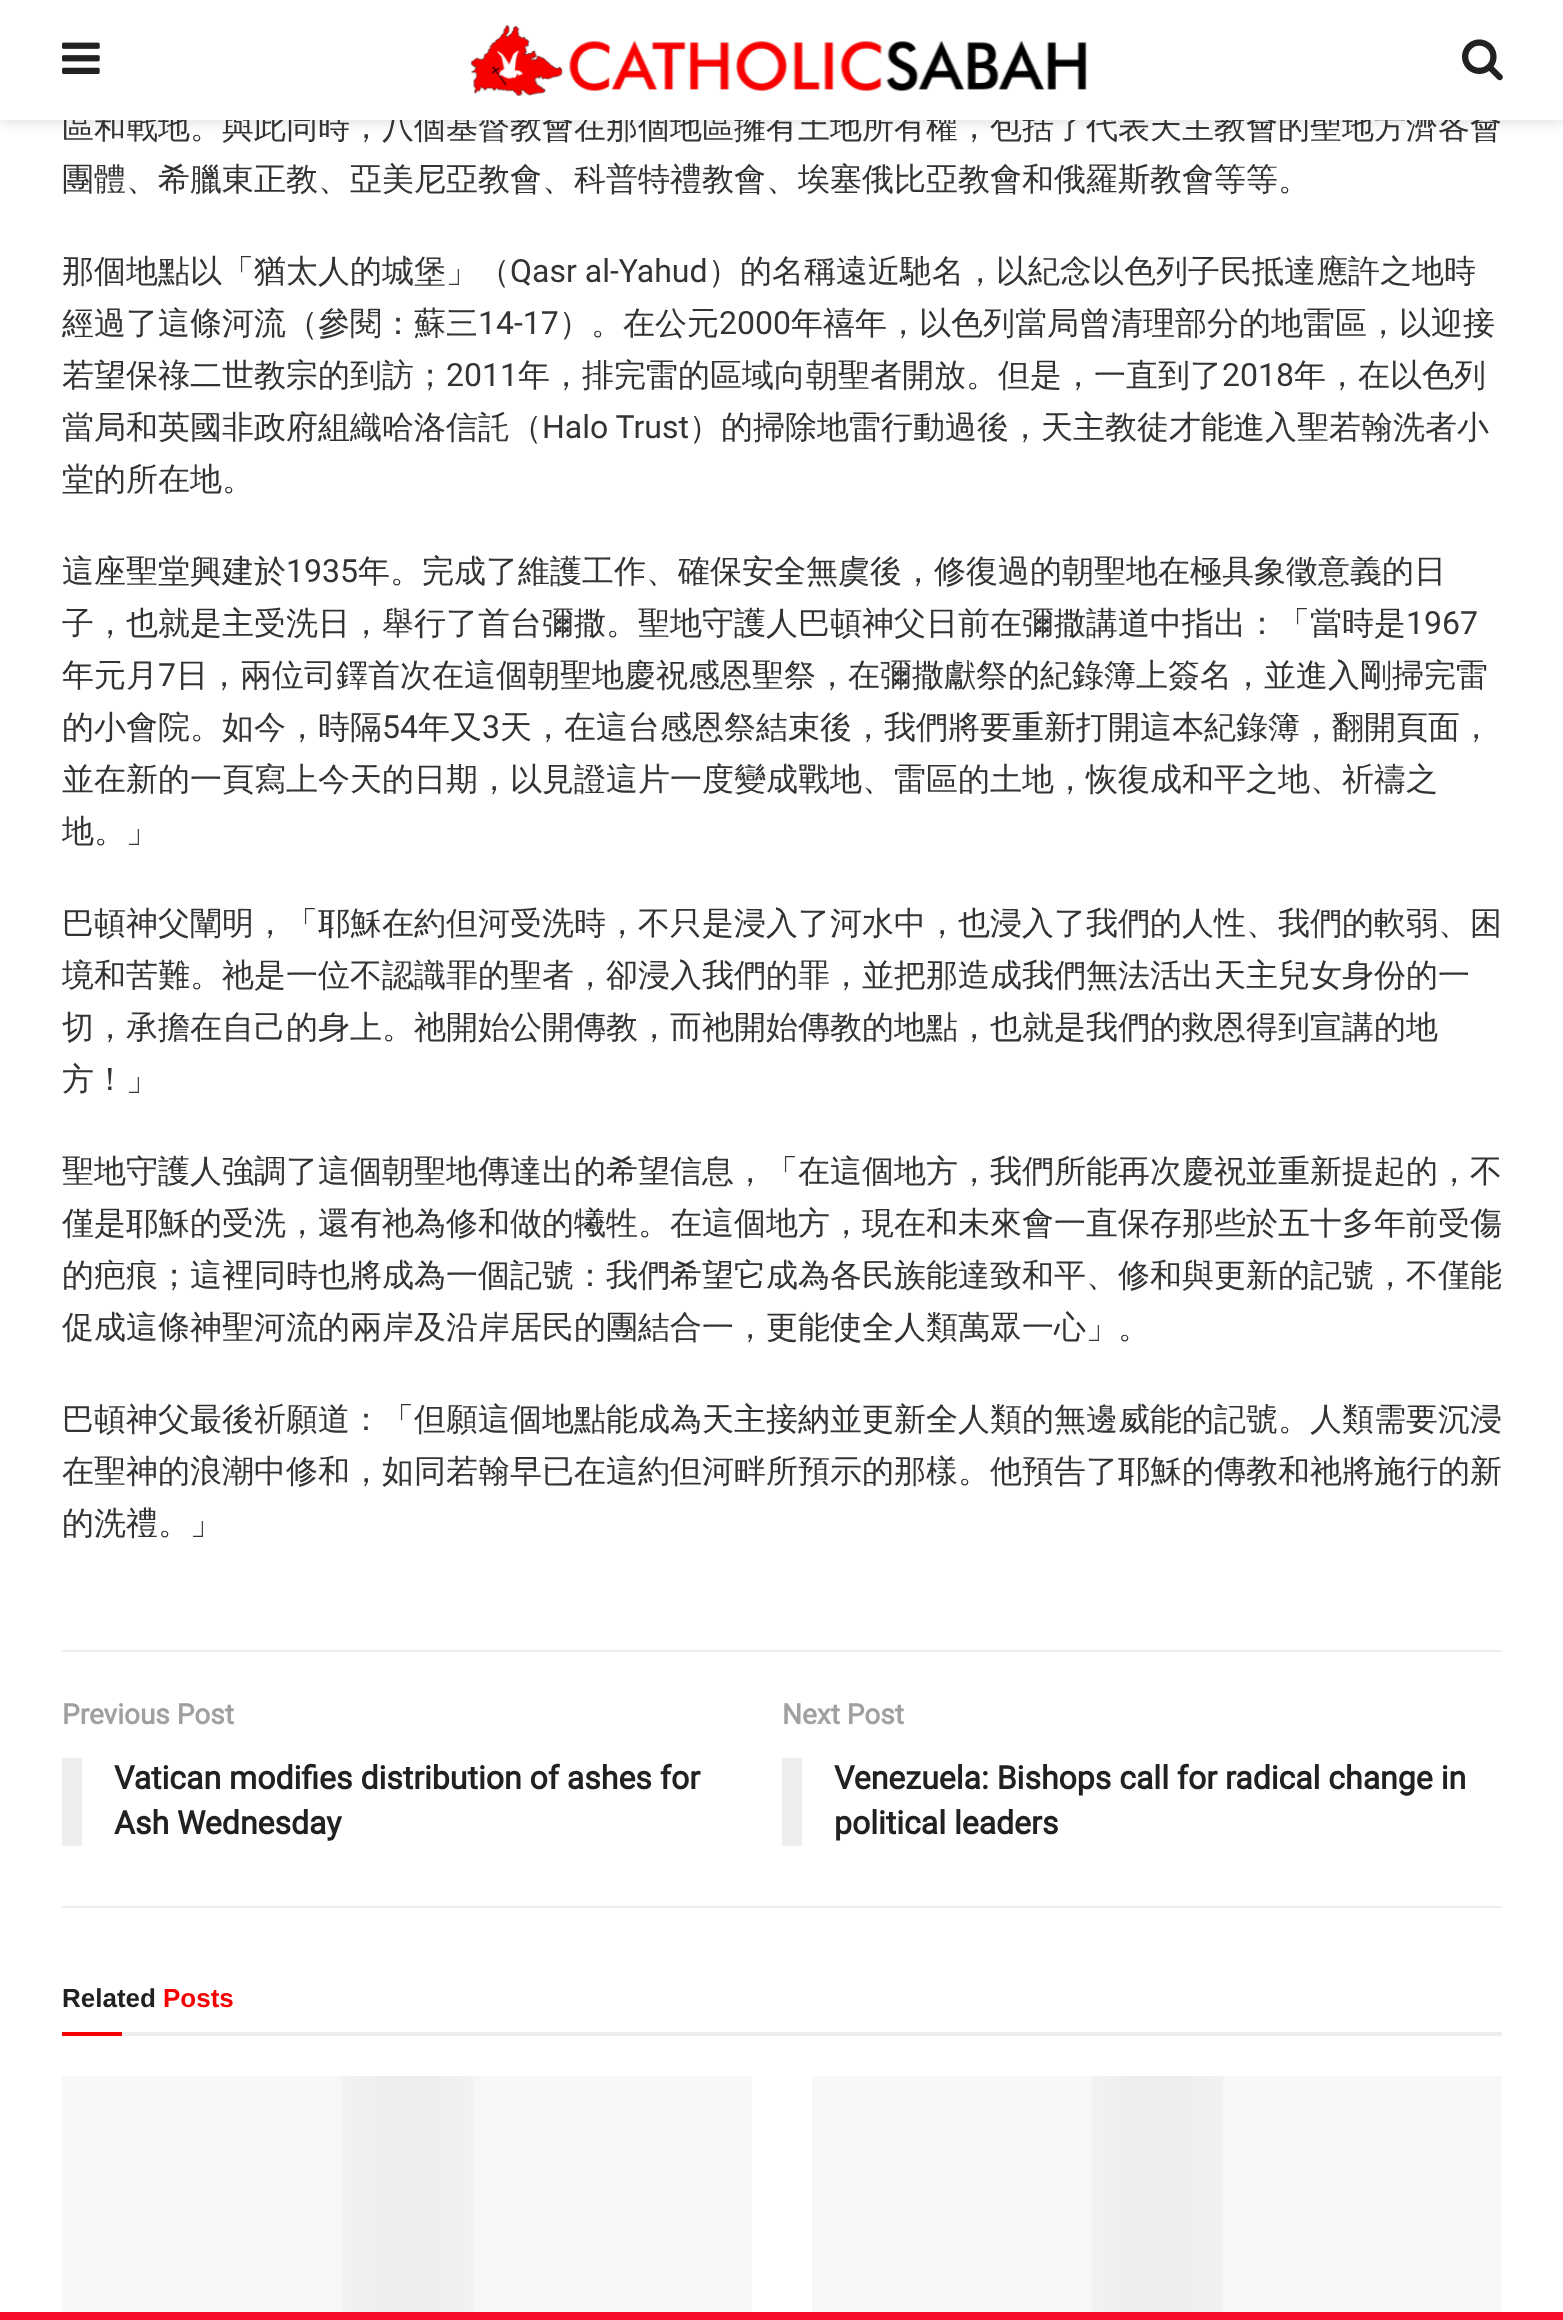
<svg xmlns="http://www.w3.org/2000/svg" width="1563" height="2320">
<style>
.a{font:500 32px WenQuanYi Zen Hei;fill:#333}
.b{font:32px Roboto;fill:#333}
.c{font:bold 28px Roboto;fill:#a0a0a0}
.d{font:bold 32px Roboto;fill:#212121}
.e{font:bold 26px Liberation Sans;fill:#212121}
.f{font:bold 26px Liberation Sans;fill:#f80000}
</style>
<rect width="100%" height="100%" fill="#fff"/>
<path fill="#0000001a" filter="blur(6px)" d="M0 4h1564v120H0z"/>
<path fill="#eee" d="M62 1650h1440v2H62z"/>
<path fill="#eee" d="M62 1906h1440v2H62z"/>
<path fill="#eee" d="M62 1758h20v88H62z"/>
<path fill="#eee" d="M782 1758h20v88H782z"/>
<path fill="#eee" d="M122 2032h1380v4H122z"/>
<path fill="#f80000" d="M62 2032h60v4H62z"/>
<path fill="#f7f7f7" d="M62 2076h690v236H62z"/>
<image href="4.png" x="342" y="2076" width="131" height="236"/>
<path fill="#f7f7f7" d="M812 2076h690v236H812z"/>
<image href="4.png" x="1092" y="2076" width="131" height="236"/>
<path fill="#f70d28" d="M0 2312h1563v8H0z"/>
<text class="a" x="62" y="138">區和戰地。與此同時，八個基督教會在那個地區擁有土地所有權，包括了代表天主教會的聖地方濟各會</text>
<path fill="#fff" d="M0 0h1563v120H0z"/>
<image href="3.png" x="1462" y="39" width="41" height="42"/>
<image href="2.png" x="470" y="24" width="617" height="72"/>
<image href="1.png" x="62" y="42" width="38" height="32"/>
<text class="a" x="62" y="190">團體、希臘東正教、亞美尼亞教會、科普特禮教會、埃塞俄比亞教會和俄羅斯教會等等。</text>
<text class="a" x="62" y="282">那個地點以「猶太人的城堡」（</text>
<text class="b" x="510" y="282">Qasr al-Yahud</text>
<text class="a" x="708" y="282">）的名稱遠近馳名，以紀念以色列子民抵達應許之地時</text>
<text class="a" x="62" y="334">經過了這條河流（參閱：蘇三</text>
<text class="b" x="478" y="334">14-17</text>
<text class="a" x="559" y="334">）。在公元</text>
<text class="b" x="719" y="334">2000</text>
<text class="a" x="791" y="334">年禧年，以色列當局曾清理部分的地雷區，以迎接</text>
<text class="a" x="62" y="386">若望保祿二世教宗的到訪；</text>
<text class="b" x="446" y="386">2011</text>
<text class="a" x="518" y="386">年，排完雷的區域向朝聖者開放。但是，一直到了</text>
<text class="b" x="1222" y="386">2018</text>
<text class="a" x="1294" y="386">年，在以色列</text>
<text class="a" x="62" y="438">當局和英國非政府組織哈洛信託（</text>
<text class="b" x="542" y="438">Halo Trust</text>
<text class="a" x="689" y="438">）的掃除地雷行動過後，天主教徒才能進入聖若翰洗者小</text>
<text class="a" x="62" y="490">堂的所在地。</text>
<text class="a" x="62" y="582">這座聖堂興建於</text>
<text class="b" x="286" y="582">1935</text>
<text class="a" x="358" y="582">年。完成了維護工作、確保安全無虞後，修復過的朝聖地在極具象徵意義的日</text>
<text class="a" x="62" y="634">子，也就是主受洗日，舉行了首台彌撒。聖地守護人巴頓神父日前在彌撒講道中指出：「當時是</text>
<text class="b" x="1406" y="634">1967</text>
<text class="a" x="62" y="686">年元月</text>
<text class="b" x="158" y="686">7</text>
<text class="a" x="176" y="686">日，兩位司鐸首次在這個朝聖地慶祝感恩聖祭，在彌撒獻祭的紀錄簿上簽名，並進入剛掃完雷</text>
<text class="a" x="62" y="738">的小會院。如今，時隔</text>
<text class="b" x="382" y="738">54</text>
<text class="a" x="418" y="738">年又</text>
<text class="b" x="482" y="738">3</text>
<text class="a" x="500" y="738">天，在這台感恩祭結束後，我們將要重新打開這本紀錄簿，翻開頁面，</text>
<text class="a" x="62" y="790">並在新的一頁寫上今天的日期，以見證這片一度變成戰地、雷區的土地，恢復成和平之地、祈禱之</text>
<text class="a" x="62" y="842">地。」</text>
<text class="a" x="62" y="934">巴頓神父闡明，「耶穌在約但河受洗時，不只是浸入了河水中，也浸入了我們的人性、我們的軟弱、困</text>
<text class="a" x="62" y="986">境和苦難。祂是一位不認識罪的聖者，卻浸入我們的罪，並把那造成我們無法活出天主兒女身份的一</text>
<text class="a" x="62" y="1038">切，承擔在自己的身上。祂開始公開傳教，而祂開始傳教的地點，也就是我們的救恩得到宣講的地</text>
<text class="a" x="62" y="1090">方！」</text>
<text class="a" x="62" y="1182">聖地守護人強調了這個朝聖地傳達出的希望信息，「在這個地方，我們所能再次慶祝並重新提起的，不</text>
<text class="a" x="62" y="1234">僅是耶穌的受洗，還有祂為修和做的犧牲。在這個地方，現在和未來會一直保存那些於五十多年前受傷</text>
<text class="a" x="62" y="1286">的疤痕；這裡同時也將成為一個記號：我們希望它成為各民族能達致和平、修和與更新的記號，不僅能</text>
<text class="a" x="62" y="1338">促成這條神聖河流的兩岸及沿岸居民的團結合一，更能使全人類萬眾一心」。</text>
<text class="a" x="62" y="1430">巴頓神父最後祈願道：「但願這個地點能成為天主接納並更新全人類的無邊威能的記號。人類需要沉浸</text>
<text class="a" x="62" y="1482">在聖神的浪潮中修和，如同若翰早已在這約但河畔所預示的那樣。他預告了耶穌的傳教和祂將施行的新</text>
<text class="a" x="62" y="1534">的洗禮。」</text>
<text class="c" x="62" y="1724">Previous Post</text>
<text class="d" x="114" y="1789">Vatican modifies distribution of ashes for</text>
<text class="d" x="114" y="1834">Ash Wednesday</text>
<text class="c" x="782" y="1724">Next Post</text>
<text class="d" x="834" y="1789">Venezuela: Bishops call for radical change in</text>
<text class="d" x="834" y="1834">political leaders</text>
<text class="e" x="62" y="2007">Related</text>
<text class="f" x="163" y="2007">Posts</text>
</svg>
